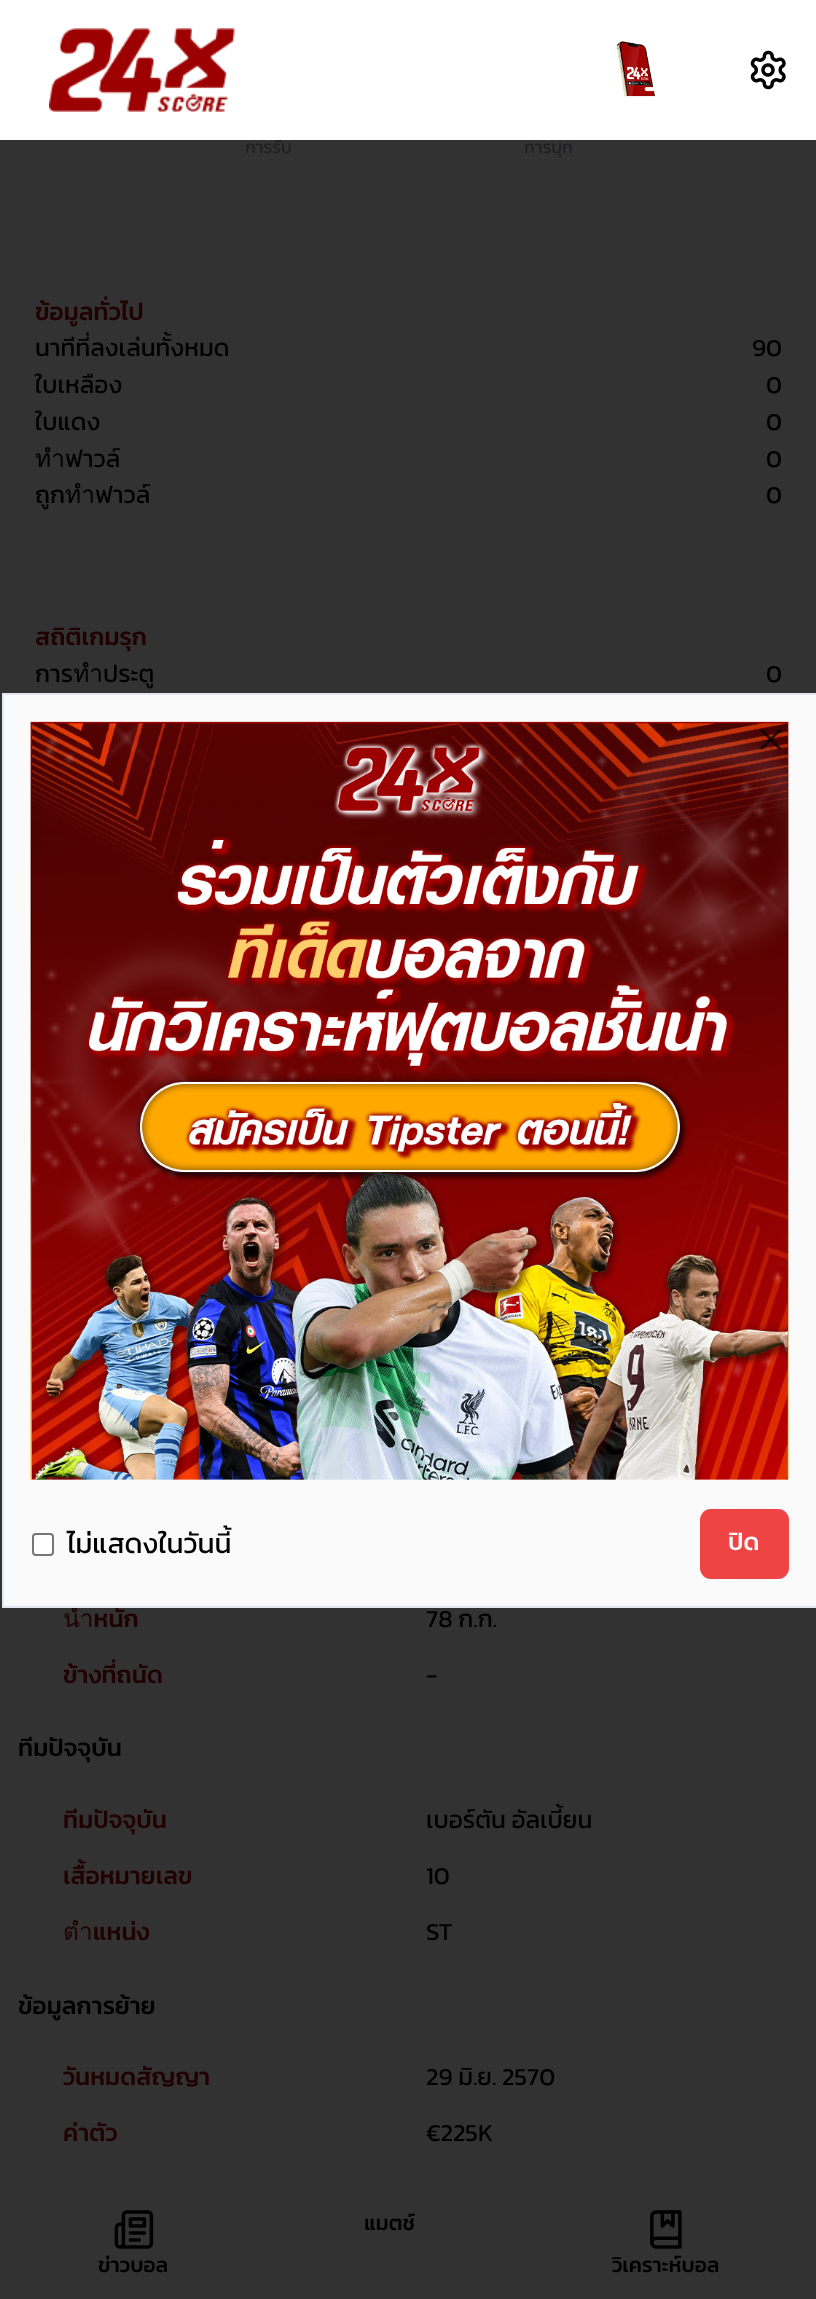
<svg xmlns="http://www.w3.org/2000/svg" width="816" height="2299">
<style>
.a{font:17.5px Kanit;fill:#1f1e21}
.b{font:500 24.5px Kanit;fill:#200000}
.c{font:24.5px Kanit;fill:#000}
.d{font:500 24.5px Kanit;fill:#000}
.e{font:28px Kanit;fill:#000}
.f{font:500 24.5px Kanit;fill:#f8fafc}
.g{font:500 21px Kanit;fill:#000}
</style>
<rect width="100%" height="100%" fill="#323232"/>
<image href="5.png" x="114" y="2210" width="40" height="39"/>
<image href="6.png" x="650" y="2210" width="32" height="39"/>
<text class="a" x="245" y="153">การรับ</text>
<path fill="#fff" d="M0 0h816v140H0z"/>
<image href="1.png" x="49" y="28" width="186" height="84"/>
<image href="3.png" x="750" y="50" width="36" height="40"/>
<image href="2.png" x="616" y="41" width="52" height="56"/>
<text class="a" x="524" y="153">การบุก</text>
<text class="b" x="35" y="320">ข้อมูลทั่วไป</text>
<text class="c" x="35" y="356">นาทีที่ลงเล่นทั้งหมด</text>
<text class="c" x="752" y="356">90</text>
<text class="c" x="35" y="393">ใบเหลือง</text>
<text class="c" x="766" y="393">0</text>
<text class="c" x="35" y="430">ใบแดง</text>
<text class="c" x="766" y="430">0</text>
<text class="c" x="35" y="467">ทำฟาวล์</text>
<text class="c" x="766" y="467">0</text>
<text class="c" x="35" y="503">ถูกทำฟาวล์</text>
<text class="c" x="766" y="503">0</text>
<text class="b" x="35" y="645">สถิติเกมรุก</text>
<text class="c" x="35" y="682">การทำประตู</text>
<text class="c" x="766" y="682">0</text>
<text class="b" x="63" y="1627">น้ำหนัก</text>
<text class="c" x="426" y="1627">78 ก.ก.</text>
<text class="b" x="63" y="1683">ข้างที่ถนัด</text>
<text class="c" x="426" y="1683">-</text>
<text class="d" x="18" y="1756">ทีมปัจจุบัน</text>
<text class="b" x="63" y="1828">ทีมปัจจุบัน</text>
<text class="c" x="426" y="1828">เบอร์ตัน อัลเบี้ยน</text>
<text class="b" x="63" y="1884">เสื้อหมายเลข</text>
<text class="c" x="426" y="1884">10</text>
<text class="b" x="63" y="1940">ตำแหน่ง</text>
<text class="c" x="426" y="1940">ST</text>
<text class="d" x="18" y="2014">ข้อมูลการย้าย</text>
<text class="b" x="63" y="2085">วันหมดสัญญา</text>
<text class="c" x="426" y="2085">29 มิ.ย. 2570</text>
<text class="b" x="63" y="2141">ค่าตัว</text>
<text class="c" x="426" y="2141">€225K</text>
<path fill="#fafafa" stroke="#e2e8f0" stroke-width="2" d="M3 694h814v913H3z"/>
<image href="4.png" x="30" y="721" width="759" height="759"/>
<path fill="none" stroke="#000000b3" stroke-width="2.9" stroke-linecap="round" stroke-linejoin="round" d="M779.5 730.5l-17.5 17.5"/>
<path fill="none" stroke="#000000b3" stroke-width="2.9" stroke-linecap="round" stroke-linejoin="round" d="M762 730.5l17.5 17.5"/>
<rect fill="#fff" stroke="#767676" stroke-width="2" x="33" y="1534" width="20" height="21" rx="3"/>
<text class="e" x="67" y="1553">ไม่แสดงในวันนี้</text>
<rect fill="#ef4444" x="700" y="1509" width="89" height="70" rx="11"/>
<text class="f" x="728" y="1550">ปิด</text>
<text class="g" x="364" y="2230">แมตช์</text>
<text class="g" x="98" y="2272">ข่าวบอล</text>
<text class="g" x="612" y="2272">วิเคราะห์บอล</text>
</svg>
